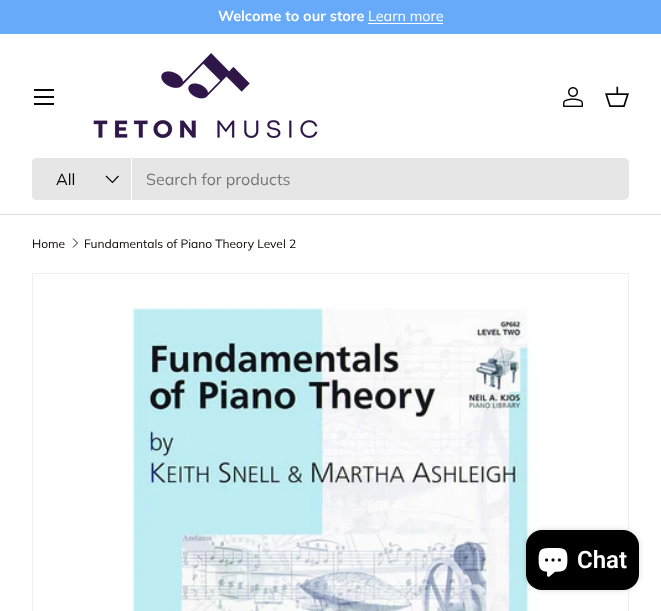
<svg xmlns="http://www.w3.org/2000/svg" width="661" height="611">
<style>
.a{font:bold 14.4px Muli;fill:#fff}
.b{font:14.4px Muli;fill:#fff}
.c{font:16px Muli;fill:#090302}
.d{font:16px Muli;fill:#777}
.e{font:12px Muli;fill:#090302}
.f{font:600 24px Roboto;fill:#fff}
</style>
<rect width="100%" height="100%" fill="#fff"/>
<path fill="#67aaf9" d="M0 0h661v34H0z"/>
<path fill="#fff" d="M368 23h75v1H368z"/>
<path fill="#dadada" d="M0 214h661v1H0z"/>
<path fill="#070707" d="M34 89h20v2H34z"/>
<path fill="#070707" d="M34 103h20v2H34z"/>
<path fill="#070707" d="M34 96h20v2H34z"/>
<image href="1.png" x="93" y="53" width="225" height="86"/>
<image href="2.png" x="563" y="87" width="20" height="20"/>
<image href="3.png" x="605" y="86" width="24" height="21"/>
<rect fill="#e6e6e6" x="32" y="158" width="597" height="42" rx="5"/>
<path fill="#e6e6e6" d="M37 158h95v42h-95c-3 0-5-2-5-5v-32c0-3 2-5 5-5z"/>
<path fill="#fff" d="M131 158h1v42H131z"/>
<path fill="none" stroke="#070707" stroke-width="1.2" d="M118.5 176l-6 6.5l-6.5-6.5"/>
<path fill="none" stroke="#090302" stroke-width="0.9" d="M73 238.5l4.5 4.5l-4.5 4.5"/>
<path fill="none" stroke="#eee" d="M32.5 273.5h596v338H32.5z"/>
<image href="4.png" x="33" y="274" width="595" height="337"/>
<rect fill="#00000026" filter="blur(2.5px)" x="526" y="530" width="113" height="60" rx="16"/>
<rect fill="#000" x="526" y="530" width="113" height="60" rx="16"/>
<image href="5.png" x="538" y="548" width="30" height="29"/>
<text class="a" x="218" y="21">Welcome to our store</text>
<text class="b" x="368" y="21">Learn more</text>
<text class="c" x="56" y="185">All</text>
<text class="d" x="146" y="185">Search for products</text>
<text class="e" x="32" y="248">Home</text>
<text class="e" x="84" y="248">Fundamentals of Piano Theory Level 2</text>
<text class="f" x="577" y="568">Chat</text>
</svg>
